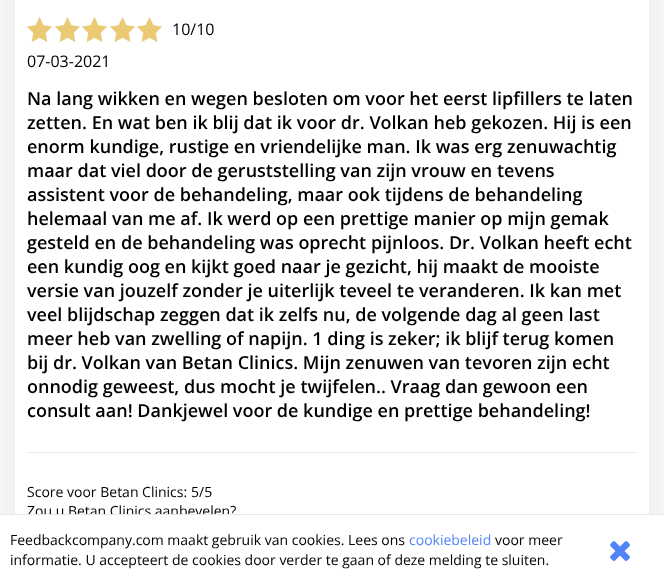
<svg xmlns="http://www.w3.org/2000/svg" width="664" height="585">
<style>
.a{font:16px Open Sans;fill:#000}
.b{font:600 18px Open Sans;fill:#000}
.c{font:14px Open Sans;fill:#000}
.d{font:14px Open Sans;fill:#5185f7}
</style>
<rect width="100%" height="100%" fill="#f5f5f5"/>
<rect fill="#1e1e1e0d" filter="blur(10px)" x="15" y="-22" width="634" height="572" rx="20"/>
<path fill="#fff" d="M15 0h634v514H15z"/>
<image href="1.png" x="27" y="17" width="25" height="25"/>
<image href="2.png" x="27" y="17" width="25" height="25"/>
<image href="1.png" x="55" y="17" width="25" height="25"/>
<image href="2.png" x="55" y="17" width="25" height="25"/>
<image href="1.png" x="82" y="17" width="25" height="25"/>
<image href="2.png" x="82" y="17" width="25" height="25"/>
<image href="1.png" x="110" y="17" width="25" height="25"/>
<image href="2.png" x="110" y="17" width="25" height="25"/>
<image href="1.png" x="137" y="17" width="25" height="25"/>
<image href="2.png" x="137" y="17" width="25" height="25"/>
<path fill="#e7e7e7" d="M27 452h610v1H27z"/>
<text class="a" x="172" y="35">10/10</text>
<text class="a" x="27" y="67">07-03-2021</text>
<text class="b" x="27" y="105">Na lang wikken en wegen besloten om voor het eerst lipfillers te laten</text>
<text class="b" x="27" y="129">zetten. En wat ben ik blij dat ik voor dr. Volkan heb gekozen. Hij is een</text>
<text class="b" x="27" y="153">enorm kundige, rustige en vriendelijke man. Ik was erg zenuwachtig</text>
<text class="b" x="27" y="177">maar dat viel door de geruststelling van zijn vrouw en tevens</text>
<text class="b" x="27" y="201">assistent voor de behandeling, maar ook tijdens de behandeling</text>
<text class="b" x="27" y="225">helemaal van me af. Ik werd op een prettige manier op mijn gemak</text>
<text class="b" x="27" y="249">gesteld en de behandeling was oprecht pijnloos. Dr. Volkan heeft echt</text>
<text class="b" x="27" y="273">een kundig oog en kijkt goed naar je gezicht, hij maakt de mooiste</text>
<text class="b" x="27" y="297">versie van jouzelf zonder je uiterlijk teveel te veranderen. Ik kan met</text>
<text class="b" x="27" y="321">veel blijdschap zeggen dat ik zelfs nu, de volgende dag al geen last</text>
<text class="b" x="27" y="345">meer heb van zwelling of napijn. 1 ding is zeker; ik blijf terug komen</text>
<text class="b" x="27" y="369">bij dr. Volkan van Betan Clinics. Mijn zenuwen van tevoren zijn echt</text>
<text class="b" x="27" y="393">onnodig geweest, dus mocht je twijfelen.. Vraag dan gewoon een</text>
<text class="b" x="27" y="417">consult aan! Dankjewel voor de kundige en prettige behandeling!</text>
<text class="c" x="27" y="497">Score voor Betan Clinics:</text>
<text class="c" x="191" y="497">5/5</text>
<text class="c" x="27" y="516">Zou u Betan Clinics aanbevelen?</text>
<path fill="#fff" d="M0 515h664v70H0z"/>
<path fill="#e7e7e7" d="M0 514h664v1H0z"/>
<text class="c" x="10" y="545">Feedbackcompany.com maakt gebruik van cookies. Lees ons</text>
<text class="d" x="409" y="545">cookiebeleid</text>
<text class="c" x="495" y="545">voor meer</text>
<text class="c" x="10" y="565">informatie. U accepteert de cookies door verder te gaan of deze melding te sluiten.</text>
<image href="3.png" x="610" y="541" width="20" height="20"/>
</svg>
